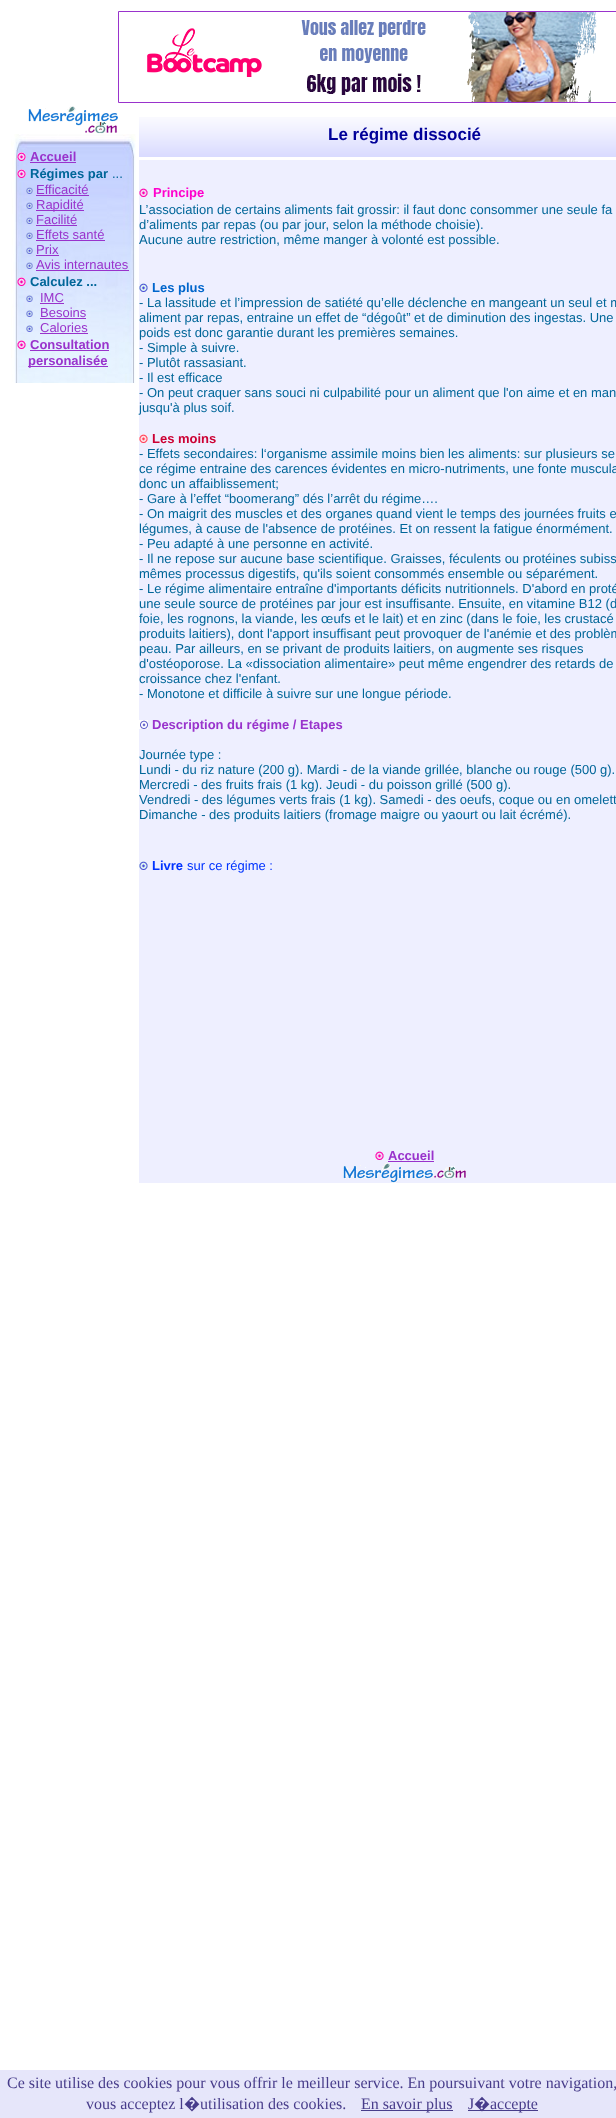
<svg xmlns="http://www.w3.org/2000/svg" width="616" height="2118">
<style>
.a{font:bold 17px Liberation Sans;fill:#009}
.b{font:bold 13px Liberation Sans;fill:#93c}
.c{font:bold 13px Liberation Sans;fill:#069}
.d{font:13px Liberation Sans;fill:#069}
.e{font:13px Liberation Sans;fill:#93c}
.f{font:bold 13px Liberation Sans;fill:#f0c}
.g{font:bold 13px Liberation Sans;fill:#06c}
.h{font:bold 13px Liberation Sans;fill:#c03}
.i{font:bold 13px Liberation Sans;fill:#03f}
.j{font:13px Liberation Sans;fill:#03f}
.k{font:16px Liberation Serif;fill:#483d8b}
.l{font:16px Noto Sans;fill:#483d8b}
</style>
<rect width="100%" height="100%" fill="#fff"/>
<path fill="none" stroke="#93c" d="M118.5 11.5h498v91H118.5z"/>
<image href="1.png" x="147" y="12" width="450" height="90"/>
<image href="2.png" x="139" y="117" width="477" height="40"/>
<image href="3.png" x="28" y="106" width="90" height="28"/>
<image href="4.png" x="11" y="134" width="125" height="249"/>
<image href="5.png" x="17" y="152" width="9" height="9"/>
<path fill="#93c" d="M30 162h46v1H30z"/>
<image href="6.png" x="17" y="169" width="9" height="9"/>
<image href="7.png" x="26" y="187" width="7" height="7"/>
<path fill="#93c" d="M36 195h53v1H36z"/>
<image href="8.png" x="26" y="202" width="7" height="7"/>
<path fill="#93c" d="M36 210h48v1H36z"/>
<image href="9.png" x="26" y="217" width="7" height="7"/>
<path fill="#93c" d="M36 225h41v1H36z"/>
<image href="10.png" x="26" y="232" width="7" height="7"/>
<path fill="#93c" d="M36 240h69v1H36z"/>
<image href="11.png" x="26" y="247" width="7" height="7"/>
<path fill="#93c" d="M36 255h23v1H36z"/>
<image href="12.png" x="26" y="262" width="7" height="7"/>
<path fill="#93c" d="M36 270h93v1H36z"/>
<image href="13.png" x="17" y="277" width="9" height="9"/>
<image href="14.png" x="26" y="295" width="7" height="7"/>
<path fill="#93c" d="M40 303h24v1H40z"/>
<image href="15.png" x="26" y="310" width="7" height="7"/>
<path fill="#93c" d="M40 318h46v1H40z"/>
<image href="16.png" x="26" y="325" width="7" height="7"/>
<path fill="#93c" d="M40 333h48v1H40z"/>
<image href="17.png" x="17" y="340" width="9" height="9"/>
<path fill="#93c" d="M30 350h79v1H30z"/>
<path fill="#93c" d="M28 366h80v1H28z"/>
<path fill="#eeefff" d="M139 160h477v1023H139z"/>
<image href="18.png" x="139" y="188" width="9" height="9"/>
<image href="19.png" x="139" y="283" width="9" height="9"/>
<image href="20.png" x="139" y="434" width="9" height="9"/>
<image href="21.png" x="139" y="720" width="9" height="9"/>
<image href="19.png" x="139" y="861" width="9" height="9"/>
<image href="18.png" x="375" y="1151" width="9" height="9"/>
<path fill="#93c" d="M388 1161h46v1H388z"/>
<image href="22.png" x="343" y="1163" width="124" height="20"/>
<path fill="#e6e6fa" d="M0 2070h616v48H0z"/>
<path fill="#483d8b" d="M361 2110h92v1H361z"/>
<path fill="#483d8b" d="M468 2110h70v1H468z"/>
<text class="a" x="328" y="140">Le régime dissocié</text>
<text class="b" x="30" y="161">Accueil</text>
<text class="c" x="30" y="178">Régimes par</text>
<text class="d" x="112" y="178">...</text>
<text class="e" x="36" y="194">Efficacité</text>
<text class="e" x="36" y="209">Rapidité</text>
<text class="e" x="36" y="224">Facilité</text>
<text class="e" x="36" y="239">Effets santé</text>
<text class="e" x="36" y="254">Prix</text>
<text class="e" x="36" y="269">Avis internautes</text>
<text class="c" x="30" y="286">Calculez ...</text>
<text class="e" x="40" y="302">IMC</text>
<text class="e" x="40" y="317">Besoins</text>
<text class="e" x="40" y="332">Calories</text>
<text class="b" x="30" y="349">Consultation</text>
<text class="b" x="28" y="365">personalisée</text>
<text class="f" x="153" y="197">Principe</text>
<text class="d" x="139" y="214">L’association de certains aliments fait grossir: il faut donc consommer une seule fa</text>
<text class="d" x="139" y="229">d’aliments par repas (ou par jour, selon la méthode choisie).</text>
<text class="d" x="139" y="244">Aucune autre restriction, même manger à volonté est possible.</text>
<text class="g" x="152" y="292">Les plus</text>
<text class="d" x="139" y="307">- La lassitude et l’impression de satiété qu’elle déclenche en mangeant un seul et m</text>
<text class="d" x="139" y="322">aliment par repas, entraine un effet de “dégoût” et de diminution des ingestas. Une</text>
<text class="d" x="139" y="337">poids est donc garantie durant les premières semaines.</text>
<text class="d" x="139" y="352">- Simple à suivre.</text>
<text class="d" x="139" y="367">- Plutôt rassasiant.</text>
<text class="d" x="139" y="382">- Il est efficace</text>
<text class="d" x="139" y="397">- On peut craquer sans souci ni culpabilité pour un aliment que l'on aime et en man</text>
<text class="d" x="139" y="412">jusqu'à plus soif.</text>
<text class="h" x="152" y="443">Les moins</text>
<text class="d" x="139" y="458">- Effets secondaires: l‘organisme assimile moins bien les aliments: sur plusieurs se</text>
<text class="d" x="139" y="473">ce régime entraine des carences évidentes en micro-nutriments, une fonte muscula</text>
<text class="d" x="139" y="488">donc un affaiblissement;</text>
<text class="d" x="139" y="503">- Gare à l’effet “boomerang” dés l’arrêt du régime….</text>
<text class="d" x="139" y="518">- On maigrit des muscles et des organes quand vient le temps des journées fruits e</text>
<text class="d" x="139" y="533">légumes, à cause de l'absence de protéines. Et on ressent la fatigue énormément.</text>
<text class="d" x="139" y="548">- Peu adapté à une personne en activité.</text>
<text class="d" x="139" y="563">- Il ne repose sur aucune base scientifique. Graisses, féculents ou protéines subiss</text>
<text class="d" x="139" y="578">mêmes processus digestifs, qu'ils soient consommés ensemble ou séparément.</text>
<text class="d" x="139" y="593">- Le régime alimentaire entraîne d'importants déficits nutritionnels. D'abord en proté</text>
<text class="d" x="139" y="608">une seule source de protéines par jour est insuffisante. Ensuite, en vitamine B12 (d</text>
<text class="d" x="139" y="623">foie, les rognons, la viande, les œufs et le lait) et en zinc (dans le foie, les crustacé</text>
<text class="d" x="139" y="638">produits laitiers), dont l'apport insuffisant peut provoquer de l'anémie et des problèm</text>
<text class="d" x="139" y="653">peau. Par ailleurs, en se privant de produits laitiers, on augmente ses risques</text>
<text class="d" x="139" y="668">d'ostéoporose. La «dissociation alimentaire» peut même engendrer des retards de</text>
<text class="d" x="139" y="683">croissance chez l'enfant.</text>
<text class="d" x="139" y="698">- Monotone et difficile à suivre sur une longue période.</text>
<text class="b" x="152" y="729">Description du régime / Etapes</text>
<text class="d" x="139" y="759">Journée type :</text>
<text class="d" x="139" y="774">Lundi - du riz nature (200 g). Mardi - de la viande grillée, blanche ou rouge (500 g).</text>
<text class="d" x="139" y="789">Mercredi - des fruits frais (1 kg). Jeudi - du poisson grillé (500 g).</text>
<text class="d" x="139" y="804">Vendredi - des légumes verts frais (1 kg). Samedi - des oeufs, coque ou en omelett</text>
<text class="d" x="139" y="819">Dimanche - des produits laitiers (fromage maigre ou yaourt ou lait écrémé).</text>
<text class="i" x="152" y="870">Livre</text>
<text class="j" x="187" y="870">sur ce régime :</text>
<text class="b" x="388" y="1160">Accueil</text>
<text class="k" x="7" y="2088">Ce site utilise des cookies pour vous offrir le meilleur service. En poursuivant votre navigation,</text>
<text class="k" x="86" y="2109">vous acceptez l</text>
<text class="l" x="184" y="2109">�</text>
<text class="k" x="200" y="2109">utilisation des cookies.</text>
<text class="k" x="361" y="2109">En savoir plus</text>
<text class="k" x="468" y="2109">J</text>
<text class="l" x="474" y="2109">�</text>
<text class="k" x="490" y="2109">accepte</text>
</svg>
